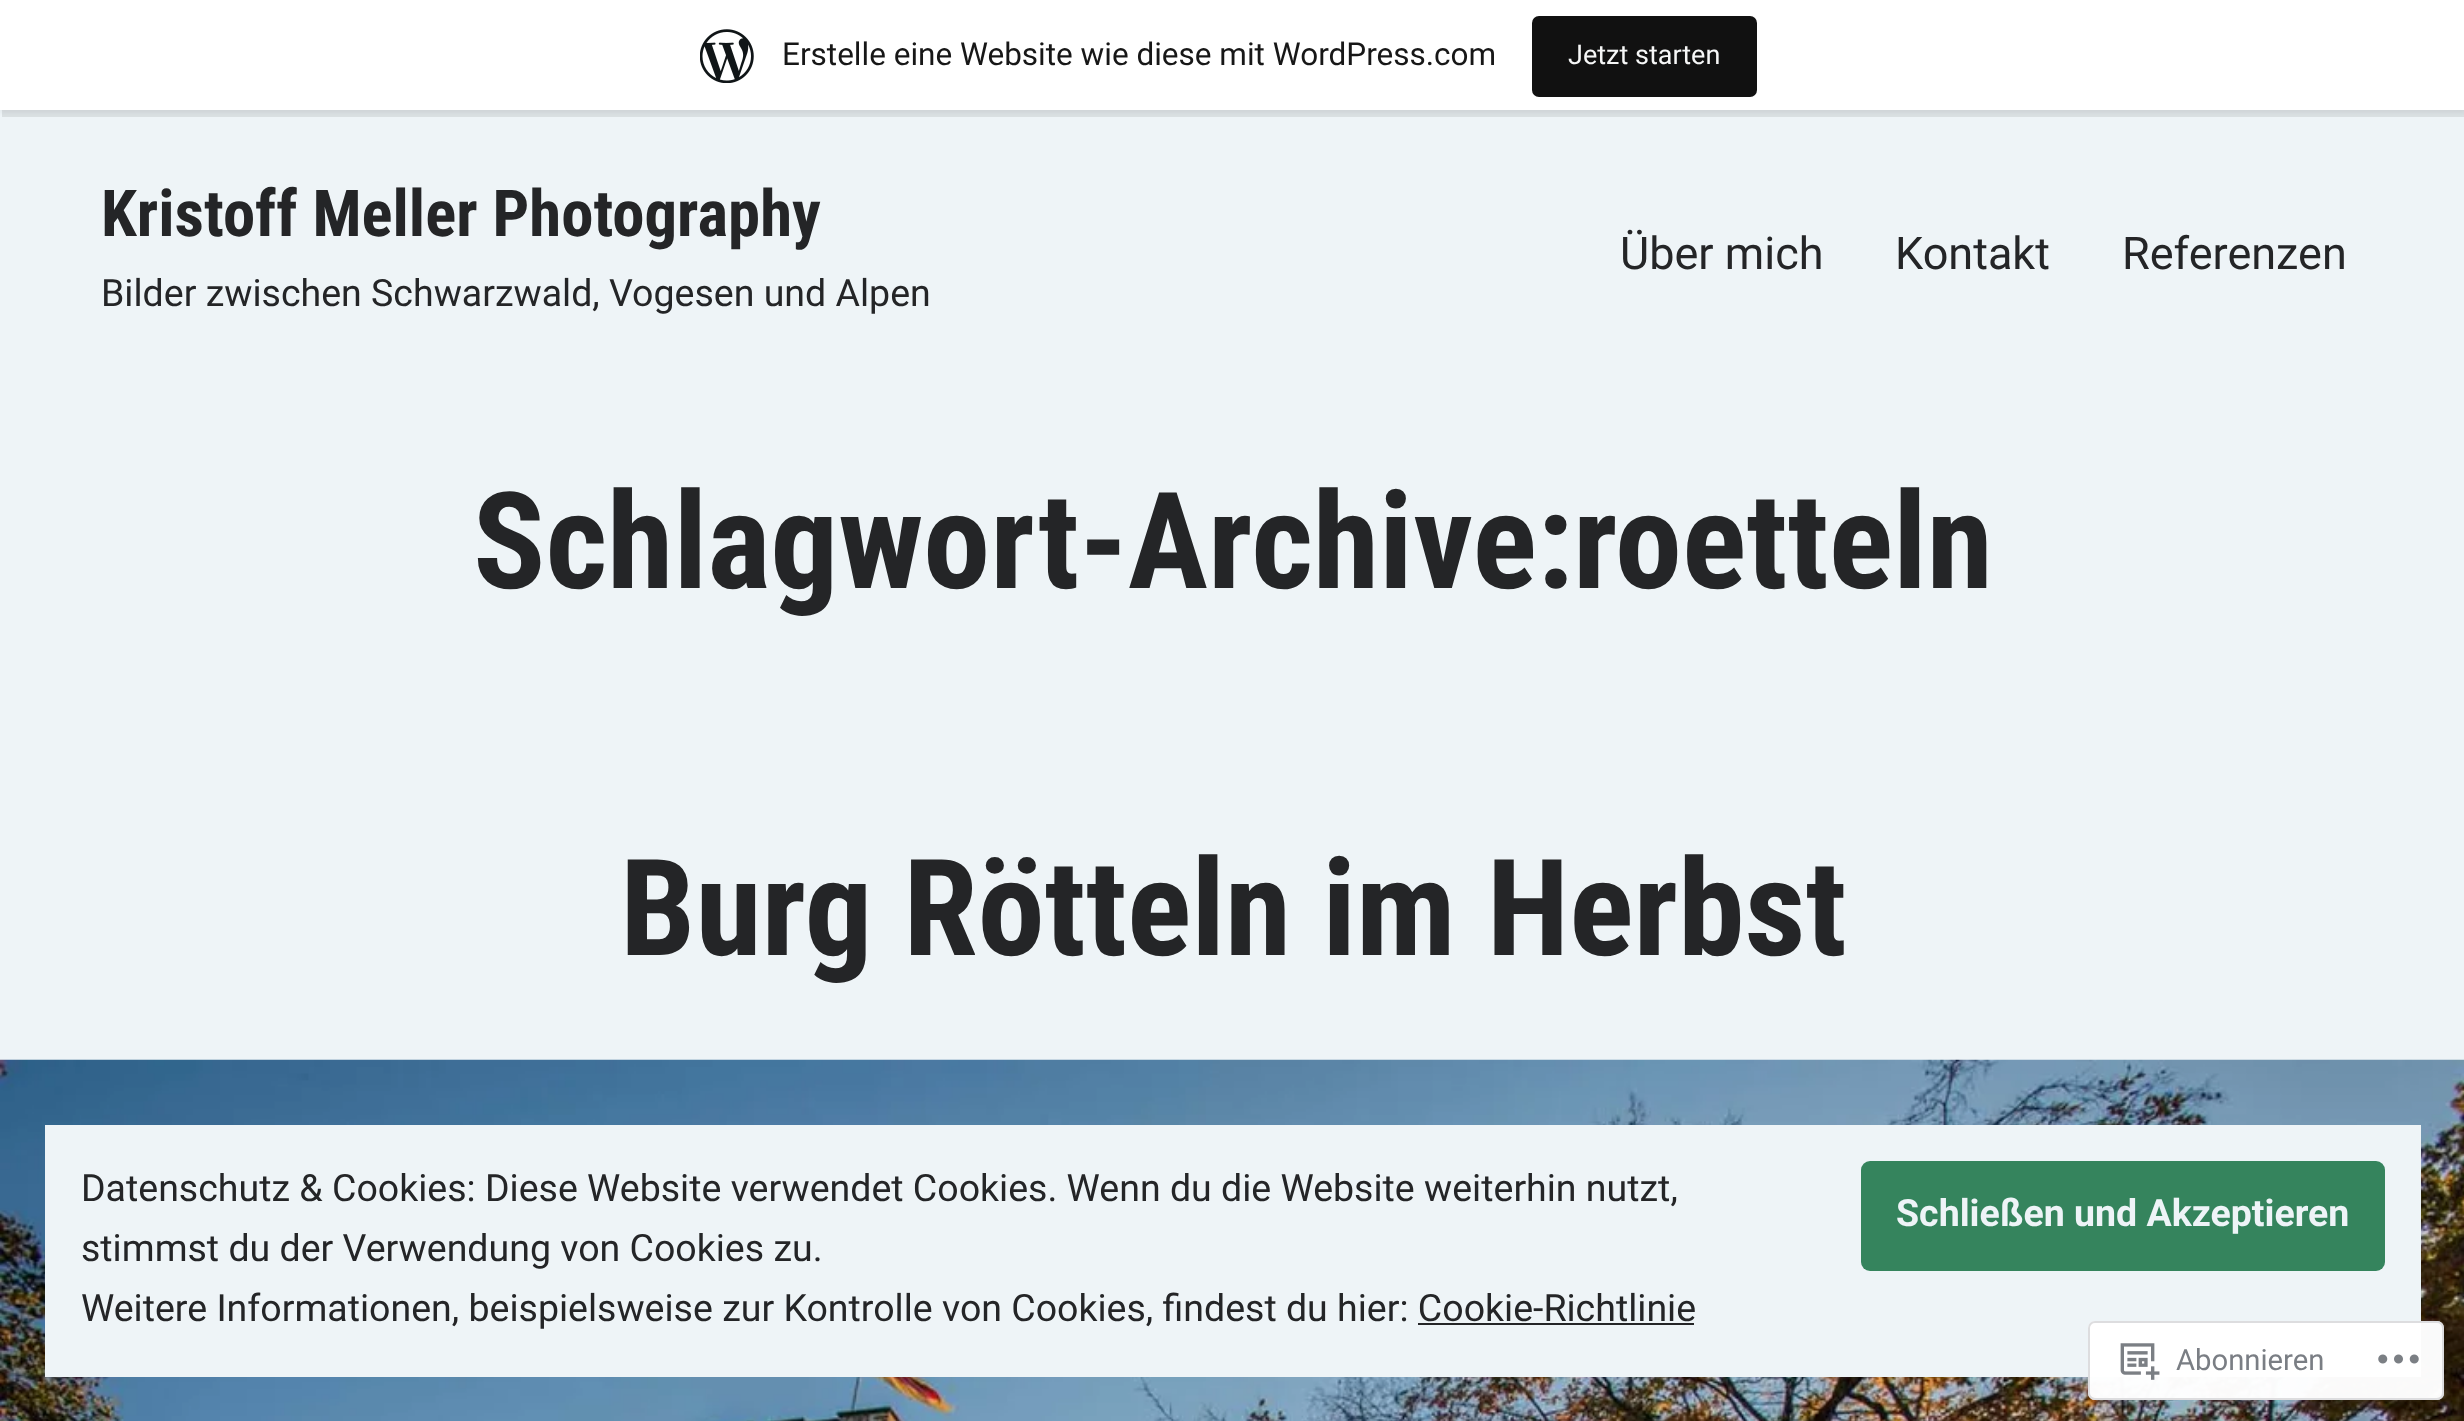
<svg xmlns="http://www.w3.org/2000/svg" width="2464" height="1421">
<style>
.a{font:31.5px Roboto;fill:#171717}
.b{font:27px Roboto;fill:#f6f7f7}
.c{font:bold 64.75px Roboto Condensed;fill:#242527}
.d{font:37.5px Roboto;fill:#242527}
.e{font:45px Roboto;fill:#242527}
.f{font:bold 134.4px Roboto Condensed;fill:#242527}
.g{font:bold 37.5px Roboto;fill:#eef4f7}
.h{font:29.25px Roboto;fill:#7a7e84}
</style>
<rect width="100%" height="100%" fill="#eef4f7"/>
<path fill="#0000000d" filter="blur(2px)" d="M0 2h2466v111H0z"/>
<path fill="#00000014" d="M2 110v7h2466v-110h-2v103z"/>
<path fill="#fff" d="M0 0h2464v110H0z"/>
<image href="1.png" x="700" y="29" width="54" height="54"/>
<rect fill="#111" x="1532" y="16" width="225" height="81" rx="7"/>
<image href="2.png" x="0" y="1059" width="2464" height="362"/>
<path fill="#eef4f7" d="M45 1125h2376v252H45z"/>
<rect fill="#35845d" x="1861" y="1161" width="524" height="110" rx="9"/>
<path fill="#242527" d="M1418 1323h276v2H1418z"/>
<rect fill="#fffffffa" x="2088" y="1321" width="356" height="79" rx="7"/>
<rect fill="none" stroke="#dcdcdefa" stroke-width="2" x="2089" y="1322" width="354" height="77" rx="6"/>
<image href="3.png" x="2120" y="1343" width="40" height="37"/>
<image href="4.png" x="2378" y="1354" width="41" height="10"/>
<text class="a" x="782" y="65">Erstelle eine Website wie diese mit WordPress.com</text>
<text class="b" x="1568" y="64">Jetzt starten</text>
<text class="c" x="101" y="236">Kristoff Meller Photography</text>
<text class="d" x="101" y="306">Bilder zwischen Schwarzwald, Vogesen und Alpen</text>
<text class="e" x="1620" y="269">Über mich</text>
<text class="e" x="1895" y="269">Kontakt</text>
<text class="e" x="2122" y="269">Referenzen</text>
<text class="f" x="473" y="588">Schlagwort-Archive:</text>
<text class="f" x="1573" y="588">roetteln</text>
<text class="f" x="620" y="955">Burg Rötteln im Herbst</text>
<text class="d" x="81" y="1201">Datenschutz &amp; Cookies: Diese Website verwendet Cookies. Wenn du die Website weiterhin nutzt,</text>
<text class="g" x="1896" y="1226">Schließen und Akzeptieren</text>
<text class="d" x="81" y="1261">stimmst du der Verwendung von Cookies zu.</text>
<text class="d" x="81" y="1321">Weitere Informationen, beispielsweise zur Kontrolle von Cookies, findest du hier: Cookie-Richtlinie</text>
<text class="h" x="2176" y="1370">Abonnieren</text>
</svg>
